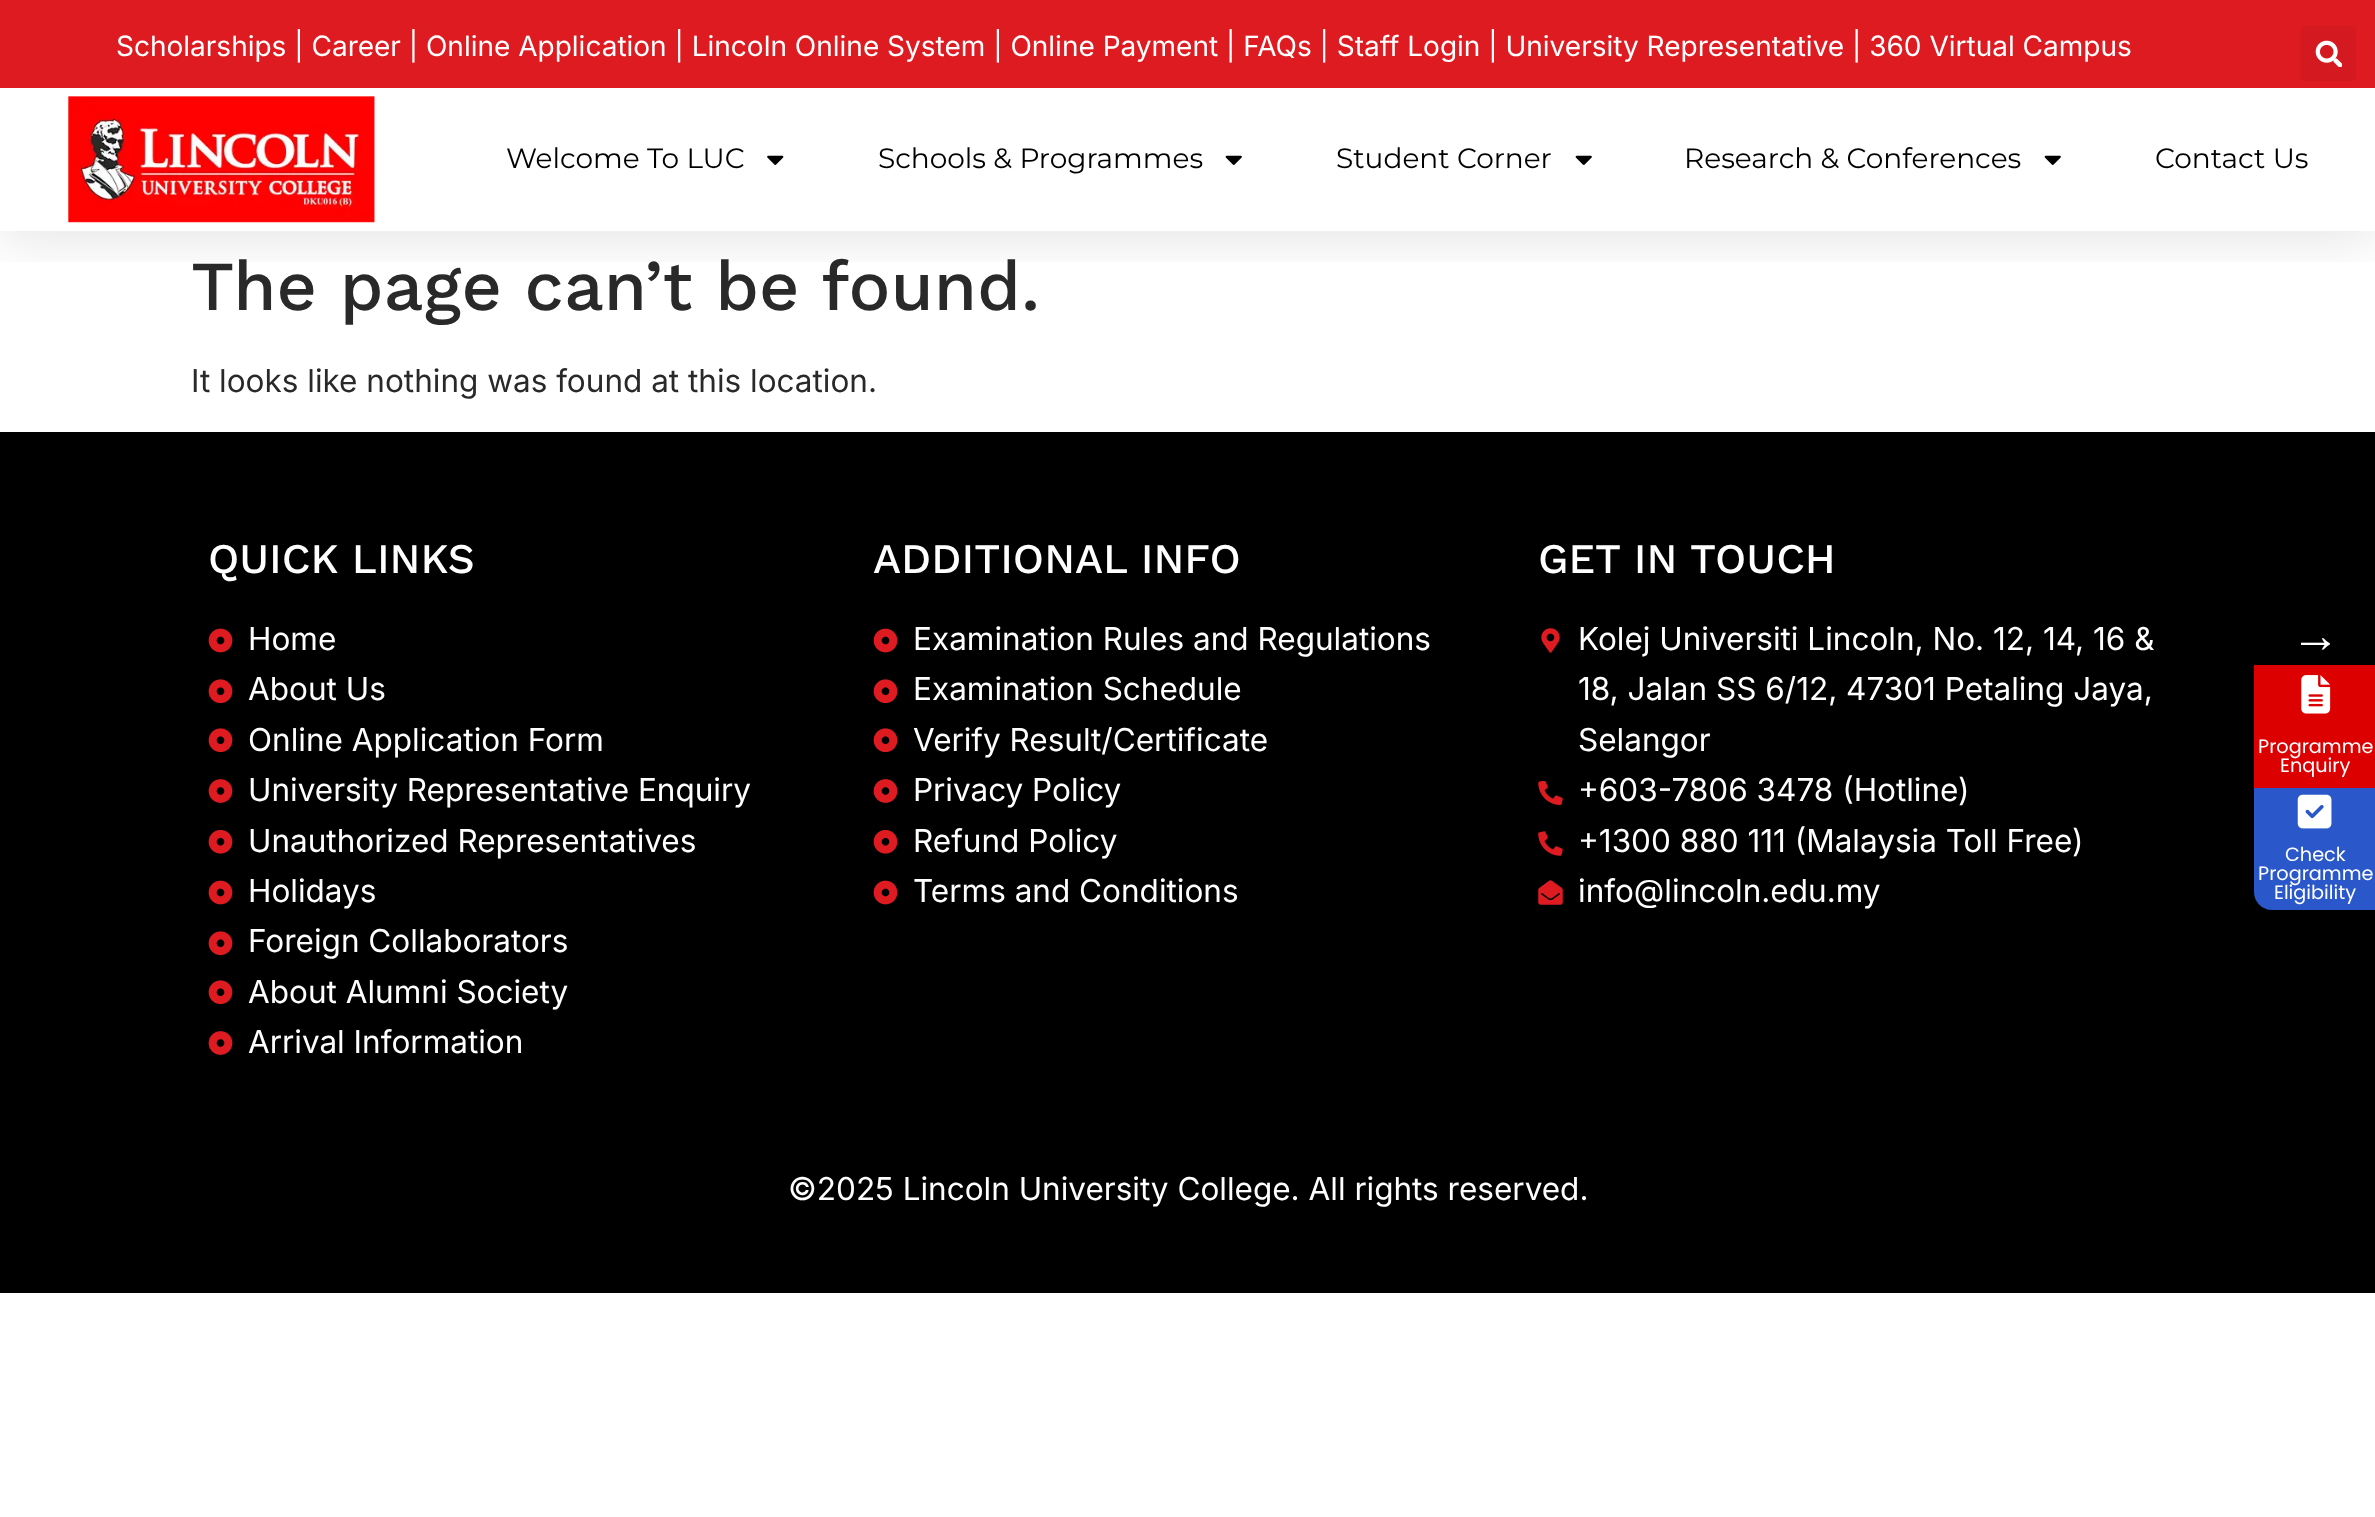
<svg xmlns="http://www.w3.org/2000/svg" width="2375" height="1517">
<style>
.a{font:28px Inter;fill:#fff}
.b{font:28px Montserrat;fill:#000}
.c{font:500 70px Work Sans;fill:#292929}
.d{font:31.5px Inter;fill:#292929}
.e{font:500 42px Work Sans;fill:#fff}
.f{font:31.5px Inter;fill:#fff}
.g{font:49px Liberation Serif;fill:#fff}
.h{font:19.25px Poppins;fill:#fff}
</style>
<defs>
<clipPath id="clip1"><path d="M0 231h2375v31H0z"/></clipPath>
</defs>
<rect width="100%" height="100%" fill="#fff"/>
<g clip-path="url(#clip1)">
<path fill="#0000001a" filter="blur(26px)" d="M0 9h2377v231H0z"/>
</g>
<path fill="#df1b22" d="M0 0h2375v88H0z"/>
<rect fill="#d41a20" x="2301" y="26" width="55" height="55" rx="5"/>
<image href="1.png" x="2315" y="40" width="27" height="27"/>
<image href="2.png" x="68" y="96" width="307" height="127"/>
<image href="3.png" x="767" y="155" width="17" height="10"/>
<image href="4.png" x="1225" y="155" width="17" height="10"/>
<image href="4.png" x="1575" y="155" width="17" height="10"/>
<image href="4.png" x="2044" y="155" width="17" height="10"/>
<path fill="#000" d="M0 432h2375v861H0z"/>
<image href="5.png" x="208" y="628" width="25" height="25"/>
<image href="6.png" x="208" y="679" width="25" height="25"/>
<image href="6.png" x="208" y="728" width="25" height="25"/>
<image href="7.png" x="208" y="779" width="25" height="24"/>
<image href="8.png" x="208" y="830" width="25" height="24"/>
<image href="5.png" x="208" y="880" width="25" height="25"/>
<image href="6.png" x="208" y="931" width="25" height="25"/>
<image href="6.png" x="208" y="980" width="25" height="25"/>
<image href="7.png" x="208" y="1031" width="25" height="24"/>
<image href="5.png" x="873" y="628" width="25" height="25"/>
<image href="6.png" x="873" y="679" width="25" height="25"/>
<image href="6.png" x="873" y="728" width="25" height="25"/>
<image href="7.png" x="873" y="779" width="25" height="24"/>
<image href="8.png" x="873" y="830" width="25" height="24"/>
<image href="5.png" x="873" y="880" width="25" height="25"/>
<image href="9.png" x="1541" y="628" width="19" height="25"/>
<image href="10.png" x="1538" y="781" width="25" height="24"/>
<image href="11.png" x="1538" y="831" width="25" height="25"/>
<image href="12.png" x="1538" y="880" width="25" height="25"/>
<path fill="#d00" d="M2254 665h121v123H2254z"/>
<image href="13.png" x="2301" y="675" width="30" height="39"/>
<path fill="#2a57c9" d="M2254 788h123v122h-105c-10 0-18-8-18-18z"/>
<image href="14.png" x="2297" y="794" width="35" height="35"/>
<text class="a" x="116" y="56">Scholarships | Career | Online Application | Lincoln Online System | Online Payment | FAQs | Staff Login | University Representative | 360 Virtual Campus</text>
<text class="b" x="506" y="168">Welcome To LUC</text>
<text class="b" x="878" y="168">Schools &amp; Programmes</text>
<text class="b" x="1336" y="168">Student Corner</text>
<text class="b" x="1684" y="168">Research &amp; Conferences</text>
<text class="b" x="2155" y="168">Contact Us</text>
<text class="c" x="191" y="310">The page can’t be found.</text>
<text class="d" x="191" y="392">It looks like nothing was found at this location.</text>
<text class="e" x="208" y="573">QUICK LINKS</text>
<text class="f" x="248" y="650">Home</text>
<text class="f" x="248" y="700">About Us</text>
<text class="f" x="248" y="751">Online Application Form</text>
<text class="f" x="248" y="801">University Representative Enquiry</text>
<text class="f" x="248" y="852">Unauthorized Representatives</text>
<text class="f" x="248" y="902">Holidays</text>
<text class="f" x="248" y="952">Foreign Collaborators</text>
<text class="f" x="248" y="1003">About Alumni Society</text>
<text class="f" x="248" y="1053">Arrival Information</text>
<text class="e" x="873" y="573">ADDITIONAL INFO</text>
<text class="f" x="913" y="650">Examination Rules and Regulations</text>
<text class="f" x="913" y="700">Examination Schedule</text>
<text class="f" x="913" y="751">Verify Result/Certificate</text>
<text class="f" x="913" y="801">Privacy Policy</text>
<text class="f" x="913" y="852">Refund Policy</text>
<text class="f" x="913" y="902">Terms and Conditions</text>
<text class="e" x="1538" y="573">GET IN TOUCH</text>
<text class="f" x="1578" y="650">Kolej Universiti Lincoln, No. 12, 14, 16 &amp;</text>
<text class="f" x="1578" y="700">18, Jalan SS 6/12, 47301 Petaling Jaya,</text>
<text class="f" x="1578" y="751">Selangor</text>
<text class="f" x="1578" y="801">+603-7806 3478 (Hotline)</text>
<text class="f" x="1578" y="852">+1300 880 111 (Malaysia Toll Free)</text>
<text class="f" x="1578" y="902">info@lincoln.edu.my</text>
<text class="f" x="788" y="1200">©2025 Lincoln University College. All rights reserved.</text>
<text class="g" x="2291" y="652">→</text>
<text class="h" x="2258" y="753">Programme</text>
<text class="h" x="2280" y="772">Enquiry</text>
<text class="h" x="2285" y="861">Check</text>
<text class="h" x="2258" y="880">Programme</text>
<text class="h" x="2274" y="899">Eligibility</text>
</svg>
